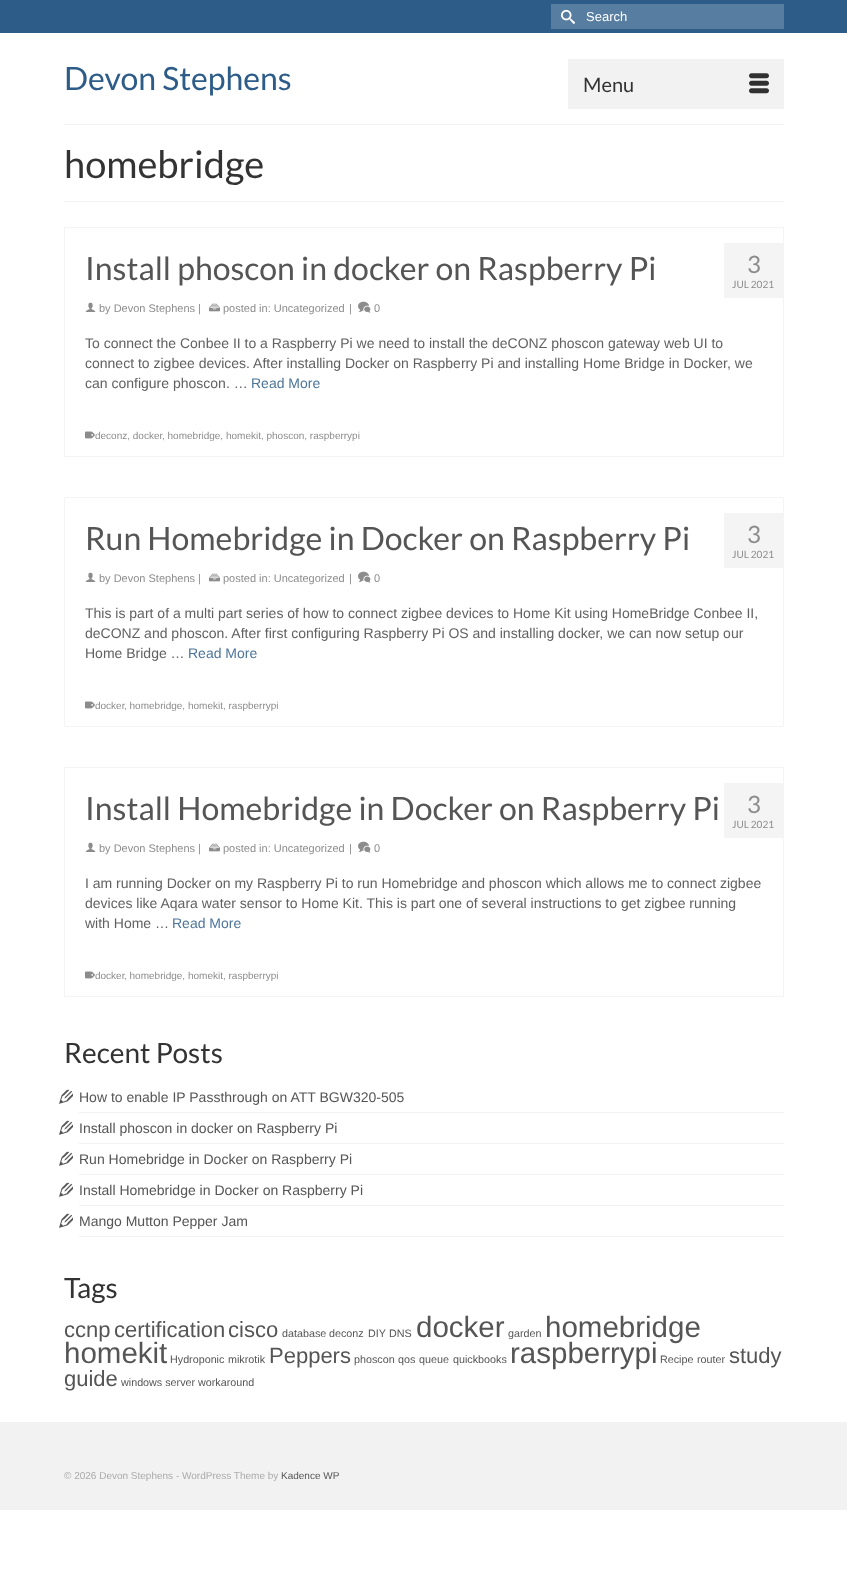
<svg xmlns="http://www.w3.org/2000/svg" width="847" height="1575">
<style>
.a{font:13px Liberation Sans;fill:#fff}
.b{font:32px Lato;fill:#2d5c88}
.c{font:20px Lato;fill:#333}
.d{font:38px Lato;fill:#333}
.e{font:32px Lato;fill:#555}
.f{font:11px Liberation Sans;fill:#8c8c8c}
.g{font:24px Lato;fill:#8c8c8c}
.h{font:10px Lato;fill:#8c8c8c}
.i{font:14px Liberation Sans;fill:#616161}
.j{font:14px Liberation Sans;fill:#4d759a}
.k{font:10px Liberation Sans;fill:#8c8c8c}
.l{font:28px Lato;fill:#333}
.m{font:14px Liberation Sans;fill:#555}
.n{font:22px Liberation Sans;fill:#555}
.o{font:10.75px Liberation Sans;fill:#555}
.p{font:29.5px Liberation Sans;fill:#555}
.q{font:10px Liberation Sans;fill:#aaa}
.r{font:10px Liberation Sans;fill:#555}
</style>
<rect width="100%" height="100%" fill="#fff"/>
<path fill="#2d5c88" d="M0 0h847v33H0z"/>
<path fill="#577da0" d="M551 4h233v25H551z"/>
<image href="1.png" x="561" y="9" width="14" height="15"/>
<path fill="#f2f2f2" d="M568 59h216v50H568z"/>
<image href="2.png" x="749" y="73" width="20" height="21"/>
<path fill="#f2f2f2" d="M64 124h720v1H64z"/>
<path fill="#f2f2f2" d="M64 201h720v1H64z"/>
<path fill="none" stroke="#f4f4f4" d="M64.5 227.5h719v229H64.5z"/>
<image href="3.png" x="85" y="302" width="11" height="10"/>
<image href="4.png" x="209" y="303" width="11" height="9"/>
<image href="5.png" x="358" y="301" width="13" height="12"/>
<path fill="#f4f4f4" d="M724 243h59v55H724z"/>
<image href="6.png" x="85" y="431" width="10" height="8"/>
<path fill="none" stroke="#f4f4f4" d="M64.5 497.5h719v229H64.5z"/>
<image href="7.png" x="85" y="572" width="11" height="10"/>
<image href="8.png" x="209" y="573" width="11" height="9"/>
<image href="9.png" x="358" y="571" width="13" height="12"/>
<path fill="#f4f4f4" d="M724 513h59v55H724z"/>
<image href="10.png" x="85" y="701" width="10" height="8"/>
<path fill="none" stroke="#f4f4f4" d="M64.5 767.5h719v229H64.5z"/>
<image href="7.png" x="85" y="842" width="11" height="10"/>
<image href="8.png" x="209" y="843" width="11" height="9"/>
<image href="9.png" x="358" y="841" width="13" height="12"/>
<path fill="#f4f4f4" d="M724 783h59v55H724z"/>
<image href="10.png" x="85" y="971" width="10" height="8"/>
<path fill="#f2f2f2" d="M79 1112h705v1H79z"/>
<image href="11.png" x="59" y="1089" width="14" height="15"/>
<path fill="#f2f2f2" d="M79 1143h705v1H79z"/>
<image href="11.png" x="59" y="1120" width="14" height="15"/>
<path fill="#f2f2f2" d="M79 1174h705v1H79z"/>
<image href="11.png" x="59" y="1151" width="14" height="15"/>
<path fill="#f2f2f2" d="M79 1205h705v1H79z"/>
<image href="11.png" x="59" y="1182" width="14" height="15"/>
<path fill="#f2f2f2" d="M79 1236h705v1H79z"/>
<image href="11.png" x="59" y="1213" width="14" height="15"/>
<path fill="#f2f2f2" d="M0 1422h847v88H0z"/>
<text class="a" x="586" y="21">Search</text>
<text class="b" x="64" y="90">Devon Stephens</text>
<text class="c" x="583" y="92">Menu</text>
<text class="d" x="64" y="178">homebridge</text>
<text class="e" x="85" y="280">Install phoscon in docker on Raspberry Pi</text>
<text class="f" x="99" y="312">by Devon Stephens |</text>
<text class="f" x="223" y="312">posted in: Uncategorized</text>
<text class="f" x="349" y="312">|</text>
<text class="f" x="374" y="312">0</text>
<text class="g" x="747" y="273">3</text>
<text class="h" x="732" y="288">JUL 2021</text>
<text class="i" x="85" y="348">To connect the Conbee II to a Raspberry Pi we need to install the deCONZ phoscon gateway web UI to</text>
<text class="i" x="85" y="368">connect to zigbee devices. After installing Docker on Raspberry Pi and installing Home Bridge in Docker, we</text>
<text class="i" x="85" y="388">can configure phoscon. …</text>
<text class="j" x="251" y="388">Read More</text>
<text class="k" x="95" y="439">deconz, docker</text>
<text class="k" x="162" y="439">, homebridge, homekit, phoscon, raspberrypi</text>
<text class="e" x="85" y="550">Run Homebridge in Docker on Raspberry Pi</text>
<text class="f" x="99" y="582">by Devon Stephens |</text>
<text class="f" x="223" y="582">posted in: Uncategorized</text>
<text class="f" x="349" y="582">|</text>
<text class="f" x="374" y="582">0</text>
<text class="g" x="747" y="543">3</text>
<text class="h" x="732" y="558">JUL 2021</text>
<text class="i" x="85" y="618">This is part of a multi part series of how to connect zigbee devices to Home Kit using HomeBridge Conbee II,</text>
<text class="i" x="85" y="638">deCONZ and phoscon. After first configuring Raspberry Pi OS and installing docker, we can now setup our</text>
<text class="i" x="85" y="658">Home Bridge …</text>
<text class="j" x="188" y="658">Read More</text>
<text class="k" x="95" y="709">docker</text>
<text class="k" x="124" y="709">, homebridge, homekit, raspberrypi</text>
<text class="e" x="85" y="820">Install Homebridge in Docker on Raspberry Pi</text>
<text class="f" x="99" y="852">by Devon Stephens |</text>
<text class="f" x="223" y="852">posted in: Uncategorized</text>
<text class="f" x="349" y="852">|</text>
<text class="f" x="374" y="852">0</text>
<text class="g" x="747" y="813">3</text>
<text class="h" x="732" y="828">JUL 2021</text>
<text class="i" x="85" y="888">I am running Docker on my Raspberry Pi to run Homebridge and phoscon which allows me to connect zigbee</text>
<text class="i" x="85" y="908">devices like Aqara water sensor to Home Kit. This is part one of several instructions to get zigbee running</text>
<text class="i" x="85" y="928">with Home …</text>
<text class="j" x="172" y="928">Read More</text>
<text class="k" x="95" y="979">docker</text>
<text class="k" x="124" y="979">, homebridge, homekit, raspberrypi</text>
<text class="l" x="64" y="1063">Recent Posts</text>
<text class="m" x="79" y="1102">How to enable IP Passthrough on ATT BGW320-505</text>
<text class="m" x="79" y="1133">Install phoscon in docker on Raspberry Pi</text>
<text class="m" x="79" y="1164">Run Homebridge in Docker on Raspberry Pi</text>
<text class="m" x="79" y="1195">Install Homebridge in Docker on Raspberry Pi</text>
<text class="m" x="79" y="1226">Mango Mutton Pepper Jam</text>
<text class="l" x="64" y="1298">Tags</text>
<text class="n" x="64" y="1337">ccnp</text>
<text class="n" x="114" y="1337">certification</text>
<text class="n" x="228" y="1337">cisco</text>
<text class="o" x="282" y="1337">database</text>
<text class="o" x="329" y="1337">deconz</text>
<text class="o" x="368" y="1337">DIY</text>
<text class="o" x="389" y="1337">DNS</text>
<text class="p" x="416" y="1337">docker</text>
<text class="o" x="508" y="1337">garden</text>
<text class="p" x="545" y="1337">homebridge</text>
<text class="p" x="64" y="1363">homekit</text>
<text class="o" x="170" y="1363">Hydroponic</text>
<text class="o" x="228" y="1363">mikrotik</text>
<text class="n" x="269" y="1363">Peppers</text>
<text class="o" x="354" y="1363">phoscon</text>
<text class="o" x="398" y="1363">qos</text>
<text class="o" x="419" y="1363">queue</text>
<text class="o" x="453" y="1363">quickbooks</text>
<text class="p" x="510" y="1363">raspberrypi</text>
<text class="o" x="660" y="1363">Recipe</text>
<text class="o" x="697" y="1363">router</text>
<text class="n" x="729" y="1363">study</text>
<text class="n" x="64" y="1386">guide</text>
<text class="o" x="121" y="1386">windows server</text>
<text class="o" x="198" y="1386">workaround</text>
<text class="q" x="64" y="1479">© 2026 Devon Stephens - WordPress Theme by</text>
<text class="r" x="281" y="1479">Kadence WP</text>
</svg>
